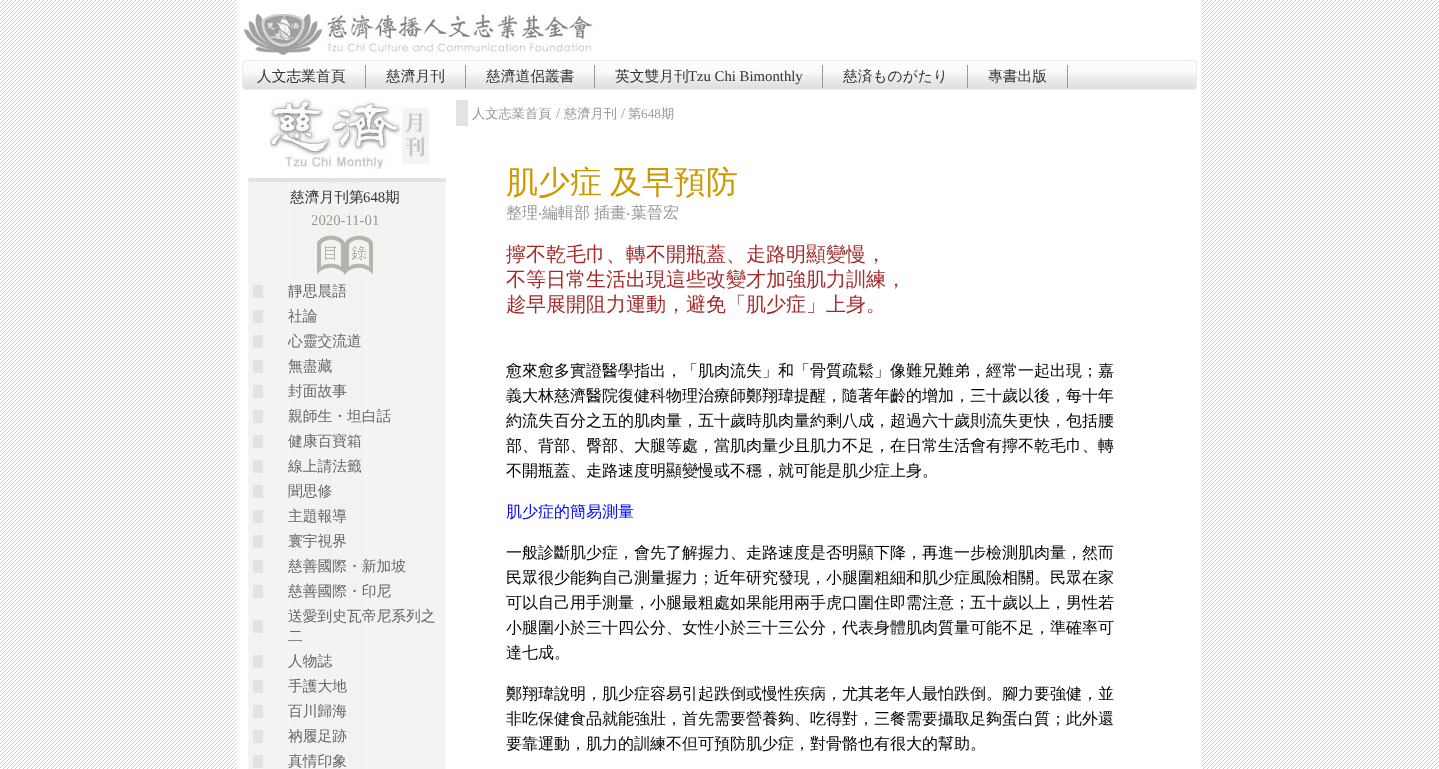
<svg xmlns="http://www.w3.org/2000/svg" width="1439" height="769">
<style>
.a{font:500 14.75px WenQuanYi Zen Hei;fill:#333}
.b{font:14.75px Liberation Serif;fill:#333}
.c{font:14.75px Liberation Serif;fill:#989a8f}
.d{font:500 14.75px WenQuanYi Zen Hei;fill:#666}
.e{font:500 13.25px WenQuanYi Zen Hei;fill:#999}
.f{font:13.25px Liberation Serif;fill:#999}
.g{font:500 32px WenQuanYi Zen Hei;fill:#c90}
.h{font:500 16px WenQuanYi Zen Hei;fill:#999}
.i{font:16px Noto Sans;fill:#999}
.j{font:500 20px WenQuanYi Zen Hei;fill:#a52a2a}
.k{font:500 16px WenQuanYi Zen Hei;fill:#000}
.l{font:500 16px WenQuanYi Zen Hei;fill:#00f}
</style>
<rect width="100%" height="100%" fill="#fff"/>
<image href="1.png" x="0" y="0" width="1439" height="769"/>
<path fill="#fff" d="M237 0h965v90H237z"/>
<image href="2.png" x="242" y="9" width="955" height="81"/>
<path fill="#999" d="M365 65h1v23H365z"/>
<path fill="#999" d="M465 65h1v23H465z"/>
<path fill="#999" d="M594 65h1v23H594z"/>
<path fill="#999" d="M822 65h1v23H822z"/>
<path fill="#999" d="M967 65h1v23H967z"/>
<path fill="#999" d="M1067 65h1v23H1067z"/>
<path fill="#fff" d="M237 90h965v679H237z"/>
<image href="3.png" x="269" y="97" width="160" height="72"/>
<image href="4.png" x="247" y="178" width="199" height="4"/>
<image href="5.png" x="248" y="182" width="198" height="587"/>
<image href="6.png" x="317" y="235" width="56" height="40"/>
<path fill="#e3e3e1" d="M253 285h10v13H253z"/>
<path fill="#e3e3e1" d="M253 310h10v13H253z"/>
<path fill="#e3e3e1" d="M253 335h10v13H253z"/>
<path fill="#e3e3e1" d="M253 360h10v13H253z"/>
<path fill="#e3e3e1" d="M253 385h10v13H253z"/>
<path fill="#e3e3e1" d="M253 410h10v13H253z"/>
<path fill="#e3e3e1" d="M253 435h10v13H253z"/>
<path fill="#e3e3e1" d="M253 460h10v13H253z"/>
<path fill="#e3e3e1" d="M253 485h10v13H253z"/>
<path fill="#e3e3e1" d="M253 510h10v13H253z"/>
<path fill="#e3e3e1" d="M253 535h10v13H253z"/>
<path fill="#e3e3e1" d="M253 560h10v13H253z"/>
<path fill="#e3e3e1" d="M253 585h10v13H253z"/>
<path fill="#e3e3e1" d="M253 620h10v13H253z"/>
<path fill="#e3e3e1" d="M253 655h10v13H253z"/>
<path fill="#e3e3e1" d="M253 680h10v13H253z"/>
<path fill="#e3e3e1" d="M253 705h10v13H253z"/>
<path fill="#e3e3e1" d="M253 730h10v13H253z"/>
<path fill="#e3e3e1" d="M253 755h10v13H253z"/>
<path fill="#e3e3e1" d="M456 100h12v26H456z"/>
<text class="a" x="257" y="81">人文志業首頁</text>
<text class="a" x="386" y="81">慈濟月刊</text>
<text class="a" x="486" y="81">慈濟道侶叢書</text>
<text class="a" x="615" y="81">英文雙月刊</text>
<text class="b" x="688" y="81">Tzu Chi Bimonthly</text>
<text class="a" x="843" y="81">慈済ものがたり</text>
<text class="a" x="988" y="81">專書出版</text>
<text class="a" x="290" y="202">慈濟月刊第</text>
<text class="b" x="363" y="202">648</text>
<text class="a" x="385" y="202">期</text>
<text class="c" x="311" y="225">2020-11-01</text>
<text class="d" x="288" y="296">靜思晨語</text>
<text class="d" x="288" y="321">社論</text>
<text class="d" x="288" y="346">心靈交流道</text>
<text class="d" x="288" y="371">無盡藏</text>
<text class="d" x="288" y="396">封面故事</text>
<text class="d" x="288" y="421">親師生・坦白話</text>
<text class="d" x="288" y="446">健康百寶箱</text>
<text class="d" x="288" y="471">線上請法籤</text>
<text class="d" x="288" y="496">聞思修</text>
<text class="d" x="288" y="521">主題報導</text>
<text class="d" x="288" y="546">寰宇視界</text>
<text class="d" x="288" y="571">慈善國際・新加坡</text>
<text class="d" x="288" y="596">慈善國際・印尼</text>
<text class="d" x="288" y="621">送愛到史瓦帝尼系列之</text>
<text class="d" x="288" y="641">二</text>
<text class="d" x="288" y="666">人物誌</text>
<text class="d" x="288" y="691">手護大地</text>
<text class="d" x="288" y="716">百川歸海</text>
<text class="d" x="288" y="741">衲履足跡</text>
<text class="d" x="288" y="766">真情印象</text>
<text class="e" x="472" y="118">人文志業首頁</text>
<text class="c" x="556" y="118">/</text>
<text class="e" x="564" y="118">慈濟月刊</text>
<text class="c" x="621" y="118">/</text>
<text class="e" x="628" y="118">第</text>
<text class="f" x="641" y="118">648</text>
<text class="e" x="661" y="118">期</text>
<text class="g" x="506" y="193">肌少症</text>
<text class="g" x="610" y="193">及早預防</text>
<text class="h" x="506" y="218">整理</text>
<text class="i" x="538" y="218">‧</text>
<text class="h" x="542" y="218">編輯部</text>
<text class="h" x="594" y="218">插畫</text>
<text class="i" x="626" y="218">‧</text>
<text class="h" x="631" y="218">葉晉宏</text>
<text class="j" x="506" y="261">擰不乾毛巾、轉不開瓶蓋、走路明顯變慢，</text>
<text class="j" x="506" y="286">不等日常生活出現這些改變才加強肌力訓練，</text>
<text class="j" x="506" y="311">趁早展開阻力運動，避免「肌少症」上身。</text>
<text class="k" x="506" y="376">愈來愈多實證醫學指出，「肌肉流失」和「骨質疏鬆」像難兄難弟，經常一起出現；嘉</text>
<text class="k" x="506" y="401">義大林慈濟醫院復健科物理治療師鄭翔瑋提醒，隨著年齡的增加，三十歲以後，每十年</text>
<text class="k" x="506" y="426">約流失百分之五的肌肉量，五十歲時肌肉量約剩八成，超過六十歲則流失更快，包括腰</text>
<text class="k" x="506" y="451">部、背部、臀部、大腿等處，當肌肉量少且肌力不足，在日常生活會有擰不乾毛巾、轉</text>
<text class="k" x="506" y="476">不開瓶蓋、走路速度明顯變慢或不穩，就可能是肌少症上身。</text>
<text class="l" x="506" y="517">肌少症的簡易測量</text>
<text class="k" x="506" y="558">一般診斷肌少症，會先了解握力、走路速度是否明顯下降，再進一步檢測肌肉量，然而</text>
<text class="k" x="506" y="583">民眾很少能夠自己測量握力；近年研究發現，小腿圍粗細和肌少症風險相關。民眾在家</text>
<text class="k" x="506" y="608">可以自己用手測量，小腿最粗處如果能用兩手虎口圍住即需注意；五十歲以上，男性若</text>
<text class="k" x="506" y="633">小腿圍小於三十四公分、女性小於三十三公分，代表身體肌肉質量可能不足，準確率可</text>
<text class="k" x="506" y="658">達七成。</text>
<text class="k" x="506" y="699">鄭翔瑋說明，肌少症容易引起跌倒或慢性疾病，尤其老年人最怕跌倒。腳力要強健，並</text>
<text class="k" x="506" y="724">非吃保健食品就能強壯，首先需要營養夠、吃得對，三餐需要攝取足夠蛋白質；此外還</text>
<text class="k" x="506" y="749">要靠運動，肌力的訓練不但可預防肌少症，對骨骼也有很大的幫助。</text>
</svg>
